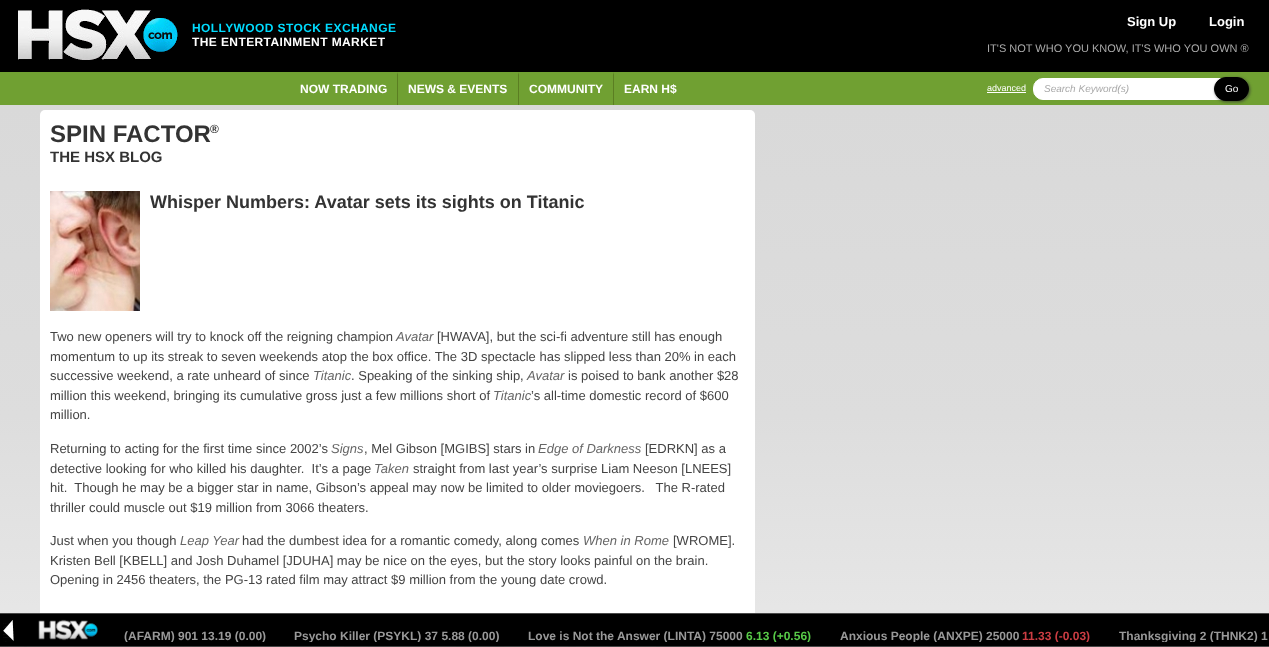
<svg xmlns="http://www.w3.org/2000/svg" width="1269" height="647">
<style>
.a{font:bold 12px Liberation Sans;letter-spacing:0.4px;fill:#00dcff}
.b{font:bold 12px Liberation Sans;letter-spacing:0.4px;fill:#fff}
.c{font:bold 13px Liberation Sans;fill:#fff}
.d{font:11px Liberation Sans;fill:#aaa}
.e{font:bold 12px Liberation Sans;fill:#fff}
.f{font:9px Liberation Sans;fill:#fff}
.g{font:italic 10px Liberation Sans;fill:#aaa}
.h{font:10px Liberation Sans;fill:#fff}
.i{font:bold 24px Liberation Sans;fill:#333}
.j{font:bold 12px Liberation Sans;fill:#333}
.k{font:bold 15px Liberation Sans;fill:#333}
.l{font:bold 18px Liberation Sans;fill:#333}
.m{font:13px Liberation Sans;fill:#444}
.n{font:italic 13px Liberation Sans;fill:#666}
.o{font:bold 12px Liberation Sans;fill:#999}
.p{font:bold 12px Liberation Sans;fill:#58cb48}
.q{font:bold 12px Liberation Sans;fill:#cc3d43}
</style>
<defs>
<linearGradient id="g1" gradientUnits="userSpaceOnUse" x1="635" y1="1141" x2="635" y2="105"><stop offset="0" stop-color="#fff"/><stop offset="0.7" stop-color="#ddd"/><stop offset="1" stop-color="#d9d9d9"/></linearGradient>
<clipPath id="clip1"><path d="M118 630h1151v12H118z"/></clipPath>
</defs>
<rect width="100%" height="100%" fill="#000"/>
<image href="1.png" x="18" y="9" width="160" height="51"/>
<path fill="#70a032" d="M0 72h1269v33H0z"/>
<path fill="#5b7e22" d="M398 72v33h-1v-30z"/>
<path fill="#5b7e22" d="M519 72v33h-1v-30z"/>
<path fill="#5b7e22" d="M614 72v33h-1v-30z"/>
<path fill="#fff" d="M987 92h39v1H987z"/>
<rect fill="#fff" stroke="#fff" x="1033.5" y="78.5" width="196" height="21" rx="9.5"/>
<path fill="url(#g1)" d="M0 105h1269v508H0z"/>
<rect fill="#323232bf" filter="blur(1.5px)" x="1215" y="78" width="35" height="24" rx="12"/>
<rect fill="#000" stroke="#000" x="1214.5" y="77.5" width="34" height="23" rx="11.5"/>
<rect fill="#fff" x="40" y="110" width="715" height="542" rx="5"/>
<image href="2.png" x="50" y="191" width="90" height="120"/>
<image href="3.png" x="0" y="613" width="1269" height="34"/>
<image href="4.png" x="3" y="620" width="11" height="22"/>
<text class="a" x="192" y="32">HOLLYWOOD STOCK EXCHANGE</text>
<text class="b" x="192" y="46">THE ENTERTAINMENT MARKET</text>
<text class="c" x="1127" y="26">Sign Up</text>
<text class="c" x="1209" y="26">Login</text>
<text class="d" x="987" y="52">IT'S NOT WHO YOU KNOW, IT'S WHO YOU OWN ®</text>
<text class="e" x="300" y="93">NOW TRADING</text>
<text class="e" x="408" y="93">NEWS &amp; EVENTS</text>
<text class="e" x="529" y="93">COMMUNITY</text>
<text class="e" x="624" y="93">EARN H$</text>
<text class="f" x="987" y="91">advanced</text>
<text class="g" x="1044" y="92">Search Keyword(s)</text>
<text class="h" x="1225" y="92">Go</text>
<text class="i" x="50" y="142">SPIN FACTOR</text>
<text class="j" x="210" y="133">®</text>
<text class="k" x="50" y="162">THE HSX BLOG</text>
<text class="l" x="150" y="208">Whisper Numbers: Avatar sets its sights on Titanic</text>
<text class="m" x="50" y="341">Two new openers will try to knock off the reigning champion</text>
<text class="n" x="396" y="341">Avatar</text>
<text class="m" x="437" y="341">[HWAVA], but the sci-fi adventure still has enough</text>
<text class="m" x="50" y="361">momentum to up its streak to seven weekends atop the box office. The 3D spectacle has slipped less than 20% in each</text>
<text class="m" x="50" y="380">successive weekend, a rate unheard of since</text>
<text class="n" x="313" y="380">Titanic</text>
<text class="m" x="351" y="380">. Speaking of the sinking ship,</text>
<text class="n" x="527" y="380">Avatar</text>
<text class="m" x="568" y="380">is poised to bank another $28</text>
<text class="m" x="50" y="400">million this weekend, bringing its cumulative gross just a few millions short of</text>
<text class="n" x="493" y="400">Titanic</text>
<text class="m" x="531" y="400">’s all-time domestic record of $600</text>
<text class="m" x="50" y="419">million.</text>
<text class="m" x="50" y="453">Returning to acting for the first time since 2002’s</text>
<text class="n" x="331" y="453">Signs</text>
<text class="m" x="364" y="453">, Mel Gibson [MGIBS] stars in</text>
<text class="n" x="538" y="453">Edge of Darkness</text>
<text class="m" x="645" y="453">[EDRKN] as a</text>
<text class="m" xml:space="preserve" x="50" y="473">detective looking for who killed his daughter.  It’s a page</text>
<text class="n" x="374" y="473">Taken</text>
<text class="m" x="413" y="473">straight from last year’s surprise Liam Neeson [LNEES]</text>
<text class="m" xml:space="preserve" x="50" y="492">hit.  Though he may be a bigger star in name, Gibson’s appeal may now be limited to older moviegoers.   The R-rated</text>
<text class="m" x="50" y="512">thriller could muscle out $19 million from 3066 theaters.</text>
<text class="m" x="50" y="545">Just when you though</text>
<text class="n" x="180" y="545">Leap Year</text>
<text class="m" x="242" y="545">had the dumbest idea for a romantic comedy, along comes</text>
<text class="n" x="583" y="545">When in Rome</text>
<text class="m" x="673" y="545">[WROME].</text>
<text class="m" x="50" y="565">Kristen Bell [KBELL] and Josh Duhamel [JDUHA] may be nice on the eyes, but the story looks painful on the brain.</text>
<text class="m" x="50" y="584">Opening in 2456 theaters, the PG-13 rated film may attract $9 million from the young date crowd.</text>
<g clip-path="url(#clip1)">
<text class="o" x="124" y="640">(AFARM) 901 13.19 (0.00)</text>
<text class="o" x="294" y="640">Psycho Killer (PSYKL) 37 5.88 (0.00)</text>
<text class="o" x="528" y="640">Love is Not the Answer (LINTA) 75000</text>
<text class="p" x="746" y="640">6.13 (+0.56)</text>
<text class="o" x="840" y="640">Anxious People (ANXPE) 25000</text>
<text class="q" x="1022" y="640">11.33 (-0.03)</text>
<text class="o" x="1119" y="640">Thanksgiving 2 (THNK2) 1</text>
</g>
</svg>
